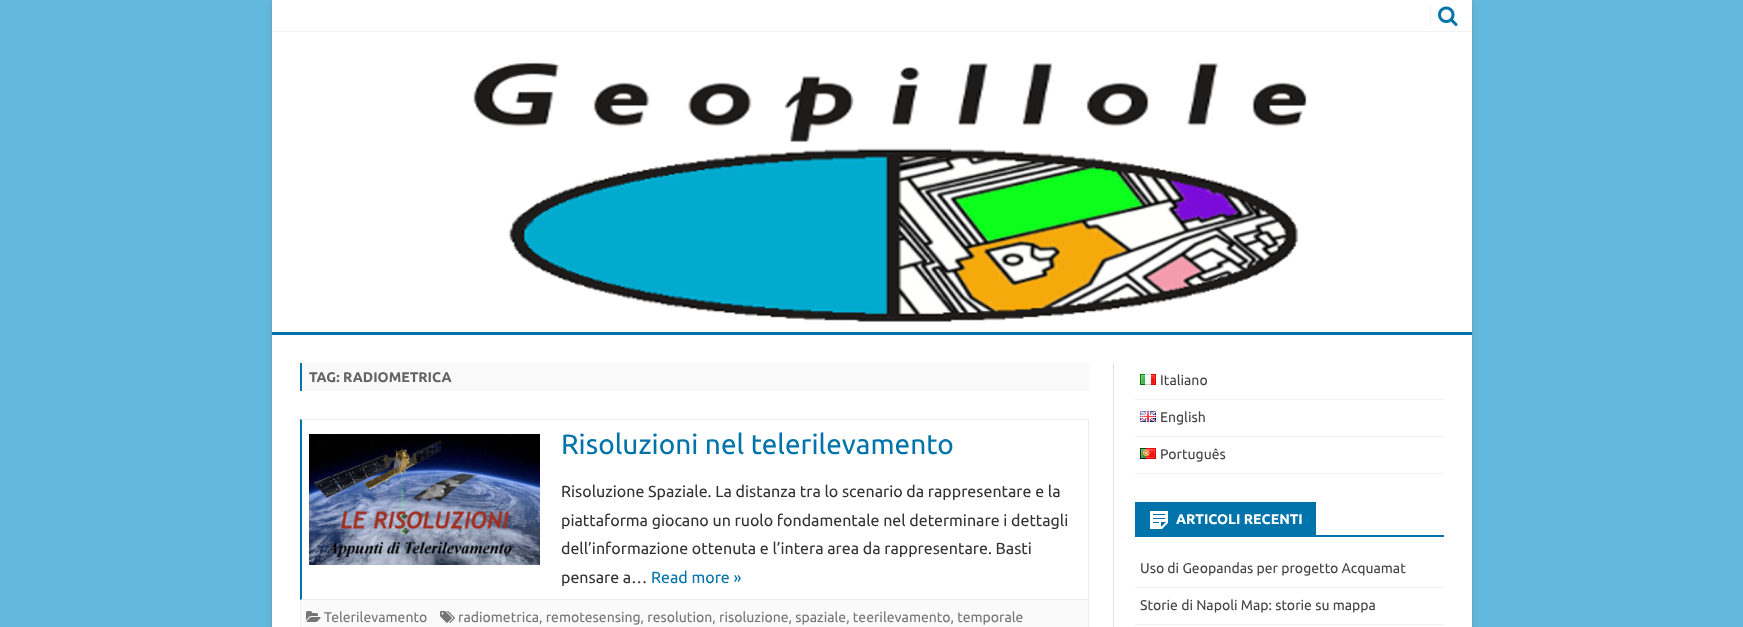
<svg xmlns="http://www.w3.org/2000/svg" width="1743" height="627">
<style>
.a{font:bold 14px Ubuntu;fill:#636363}
.b{font:28px Ubuntu;fill:#0073aa}
.c{font:16px Ubuntu;fill:#333}
.d{font:16px Ubuntu;fill:#0073aa}
.e{font:14px Ubuntu;fill:#757575}
.f{font:14px Ubuntu;fill:#444}
.g{font:bold 14px Ubuntu;fill:#fff}
</style>
<rect width="100%" height="100%" fill="#63b9dd"/>
<path fill="#6464644d" filter="blur(3px)" d="M272 2h1200v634H272z"/>
<path fill="#fff" d="M272 0h1200v627H272z"/>
<path fill="#f2f2f2" d="M272 31h1200v1H272z"/>
<path fill="#f2f2f2" d="M1430 5h1v21H1430z"/>
<image href="1.png" x="1438" y="6" width="20" height="20"/>
<image href="2.png" x="473" y="62" width="834" height="260"/>
<path fill="#0073aa" d="M272 332h1200v3H272z"/>
<path fill="#e0e0e0" d="M1113 363h1v264H1113z"/>
<path fill="#f9f9f9" d="M302 363h787v28H302z"/>
<path fill="#0073aa" d="M300 363h2v28H300z"/>
<path fill="#ededed" d="M300 419h789l-1 1h-786z"/>
<path fill="#ededed" d="M1088 419h1v181H1088z"/>
<path fill="#ededed" d="M1089 600h-789l2-1h786z"/>
<path fill="#0073aa" d="M300 600v-181l2 1v179z"/>
<image href="3.png" x="309" y="434" width="231" height="131"/>
<path fill="#fafafa" d="M301 600h787v27H301z"/>
<path fill="#ededed" d="M1088 600h1v27H1088z"/>
<path fill="#ededed" d="M300 600h1v27H300z"/>
<image href="4.png" x="306" y="611" width="15" height="11"/>
<image href="5.png" x="440" y="611" width="15" height="12"/>
<path fill="#f2f2f2" d="M1135 399h309v1H1135z"/>
<image href="6.png" x="1140" y="374" width="16" height="11"/>
<path fill="#f2f2f2" d="M1135 436h309v1H1135z"/>
<image href="7.png" x="1140" y="411" width="16" height="11"/>
<path fill="#f2f2f2" d="M1135 473h309v1H1135z"/>
<image href="8.png" x="1140" y="448" width="16" height="11"/>
<path fill="#0073aa" d="M1135 535h309v2H1135z"/>
<path fill="#0073aa" d="M1135 502h181v33H1135z"/>
<image href="9.png" x="1150" y="511" width="18" height="18"/>
<path fill="#f2f2f2" d="M1135 587h309v1H1135z"/>
<path fill="#f2f2f2" d="M1135 624h309v1H1135z"/>
<text class="a" x="309" y="382">TAG: RADIOMETRICA</text>
<text class="b" x="561" y="454">Risoluzioni nel telerilevamento</text>
<text class="c" x="561" y="497">Risoluzione Spaziale. La distanza tra lo scenario da rappresentare e la</text>
<text class="c" x="561" y="526">piattaforma giocano un ruolo fondamentale nel determinare i dettagli</text>
<text class="c" x="561" y="554">dell’informazione ottenuta e l’intera area da rappresentare. Basti</text>
<text class="c" x="561" y="583">pensare a…</text>
<text class="d" x="651" y="583">Read more »</text>
<text class="e" x="324" y="622">Telerilevamento</text>
<text class="e" x="458" y="622">radiometrica, remotesensing, resolution, risoluzione, spaziale, teerilevamento, temporale</text>
<text class="f" x="1160" y="385">Italiano</text>
<text class="f" x="1160" y="422">English</text>
<text class="f" x="1160" y="459">Português</text>
<text class="g" x="1176" y="524">ARTICOLI RECENTI</text>
<text class="f" x="1140" y="573">Uso di Geopandas per progetto Acquamat</text>
<text class="f" x="1140" y="610">Storie di Napoli Map: storie su mappa</text>
</svg>
